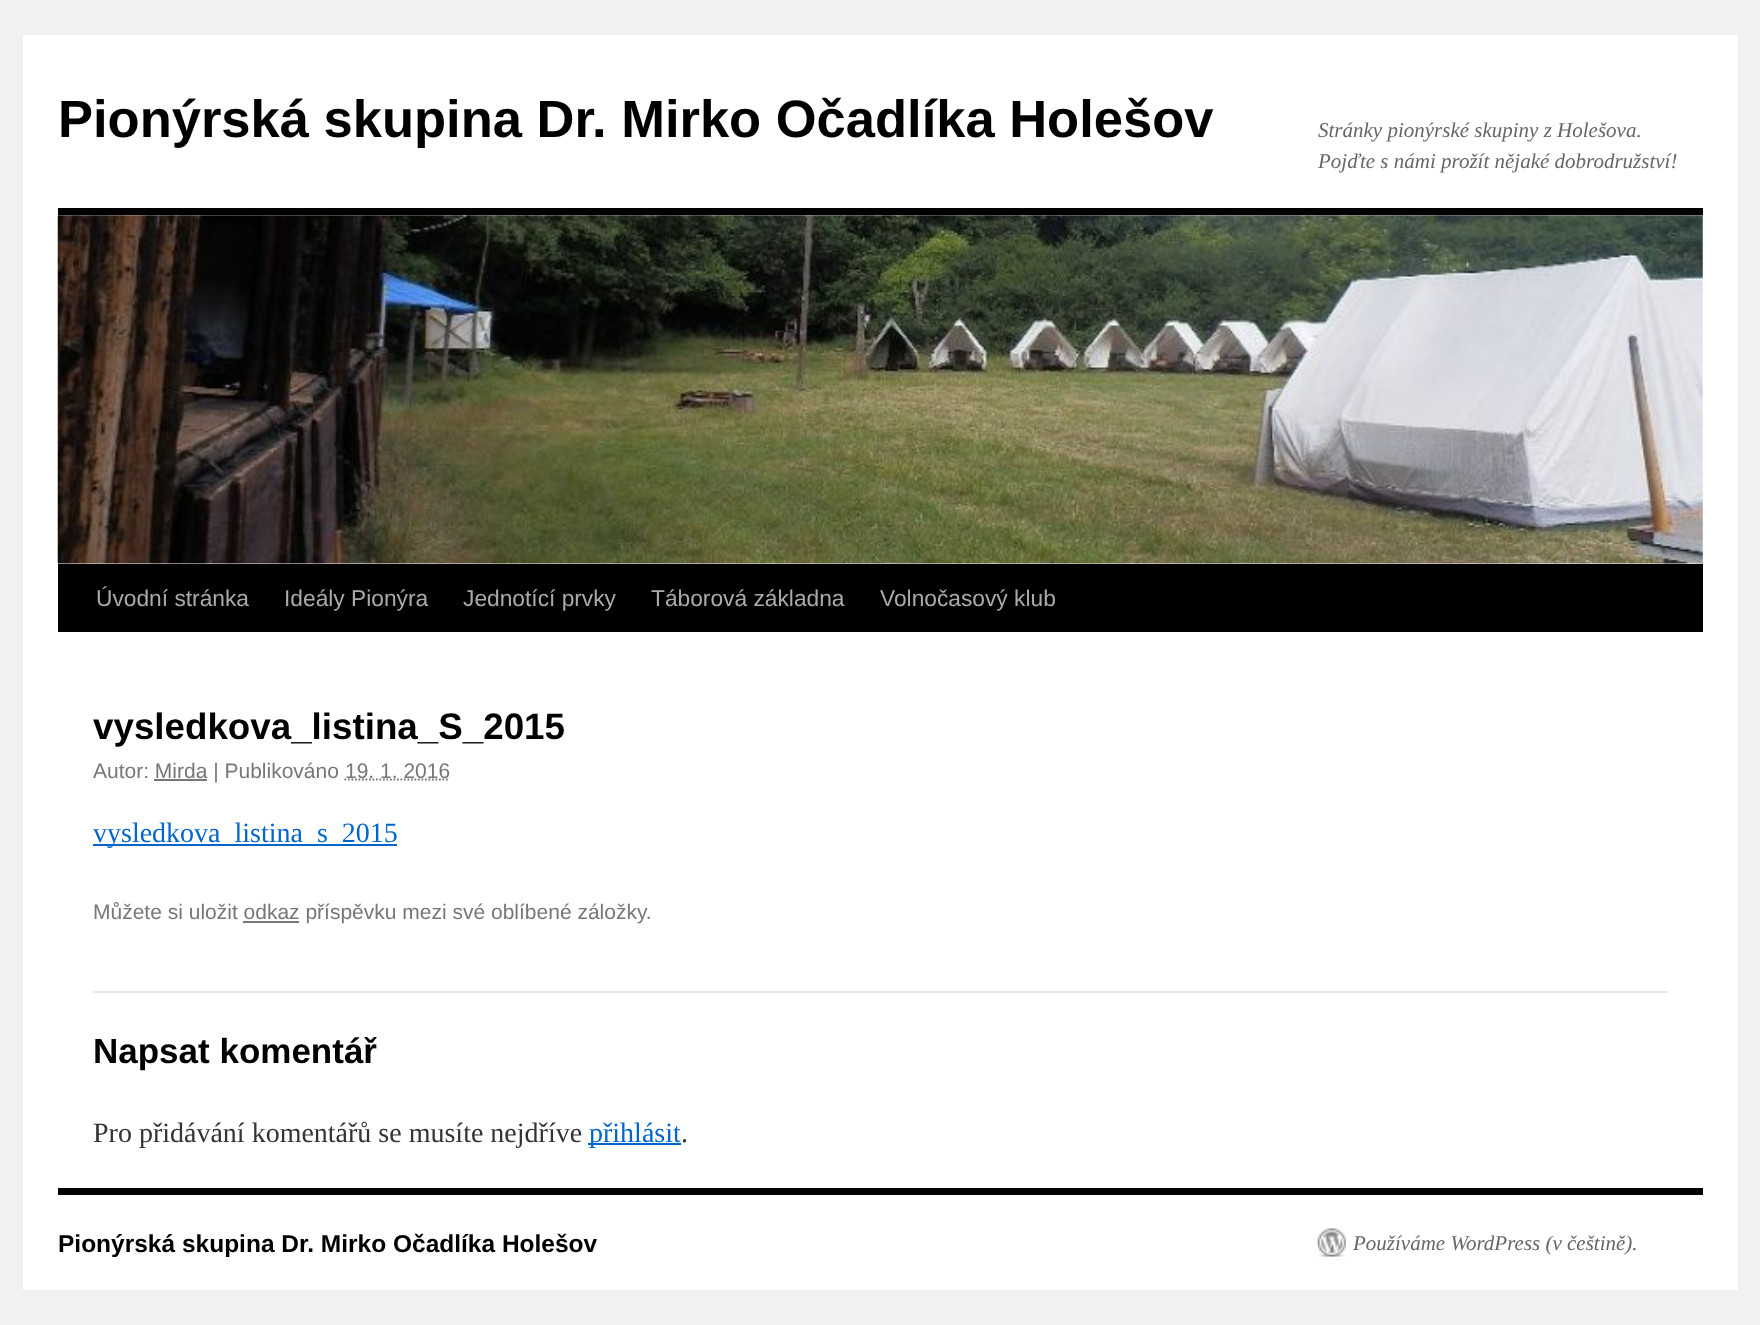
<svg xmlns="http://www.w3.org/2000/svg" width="1760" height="1325">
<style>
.a{font:bold 52.5px Liberation Sans;fill:#000}
.b{font:italic 21px Liberation Serif;fill:#666}
.c{font:22.75px Liberation Sans;fill:#aaa}
.d{font:bold 36.75px Liberation Sans;fill:#000}
.e{font:21px Liberation Sans;fill:#777}
.f{font:28px Liberation Serif;fill:#06c}
.g{font:bold 35px Liberation Sans;fill:#000}
.h{font:28px Liberation Serif;fill:#333}
.i{font:bold 24.5px Liberation Sans;fill:#000}
</style>
<rect width="100%" height="100%" fill="#f1f1f1"/>
<path fill="#fff" d="M23 35h1715v1255H23z"/>
<path fill="#000" d="M58 208h1645v7H58z"/>
<path fill="#000" d="M58 564h1645v68H58z"/>
<image href="1.png" x="57" y="215" width="1646" height="349"/>
<path fill="none" stroke="#777" stroke-width="1.8" stroke-dasharray="1.75 1.75" d="M344.5 779.5h105"/>
<path fill="#777" d="M154 779h53v2H154z"/>
<path fill="#06c" d="M93 844h304v2H93z"/>
<path fill="#777" d="M243 921h56v2H243z"/>
<path fill="#e7e7e7" d="M93 991h1575v2H93z"/>
<path fill="#06c" d="M588 1143h93v2H588z"/>
<path fill="#000" d="M58 1188h1645v7H58z"/>
<image href="2.png" x="1317" y="1228" width="29" height="29"/>
<text class="a" x="58" y="137">Pionýrská skupina Dr. Mirko Očadlíka Holešov</text>
<text class="b" x="1318" y="137">Stránky pionýrské skupiny z Holešova.</text>
<text class="b" x="1318" y="168">Pojďte s námi prožít nějaké dobrodružství!</text>
<text class="c" x="96" y="606">Úvodní stránka</text>
<text class="c" x="284" y="606">Ideály Pionýra</text>
<text class="c" x="463" y="606">Jednotící prvky</text>
<text class="c" x="651" y="606">Táborová základna</text>
<text class="c" x="880" y="606">Volnočasový klub</text>
<text class="d" x="93" y="739">vysledkova_listina_S_2015</text>
<text class="e" x="93" y="778">Autor: Mirda | Publikováno</text>
<text class="e" x="345" y="778">19. 1. 2016</text>
<text class="f" x="93" y="842">vysledkova_listina_s_2015</text>
<text class="e" x="93" y="919">Můžete si uložit odkaz příspěvku mezi své oblíbené záložky.</text>
<text class="g" x="93" y="1063">Napsat komentář</text>
<text class="h" x="93" y="1142">Pro přidávání komentářů se musíte nejdříve</text>
<text class="f" x="589" y="1142">přihlásit</text>
<text class="h" x="681" y="1142">.</text>
<text class="i" x="58" y="1252">Pionýrská skupina Dr. Mirko Očadlíka Holešov</text>
<text class="b" x="1353" y="1250">Používáme WordPress (v češtině).</text>
</svg>
